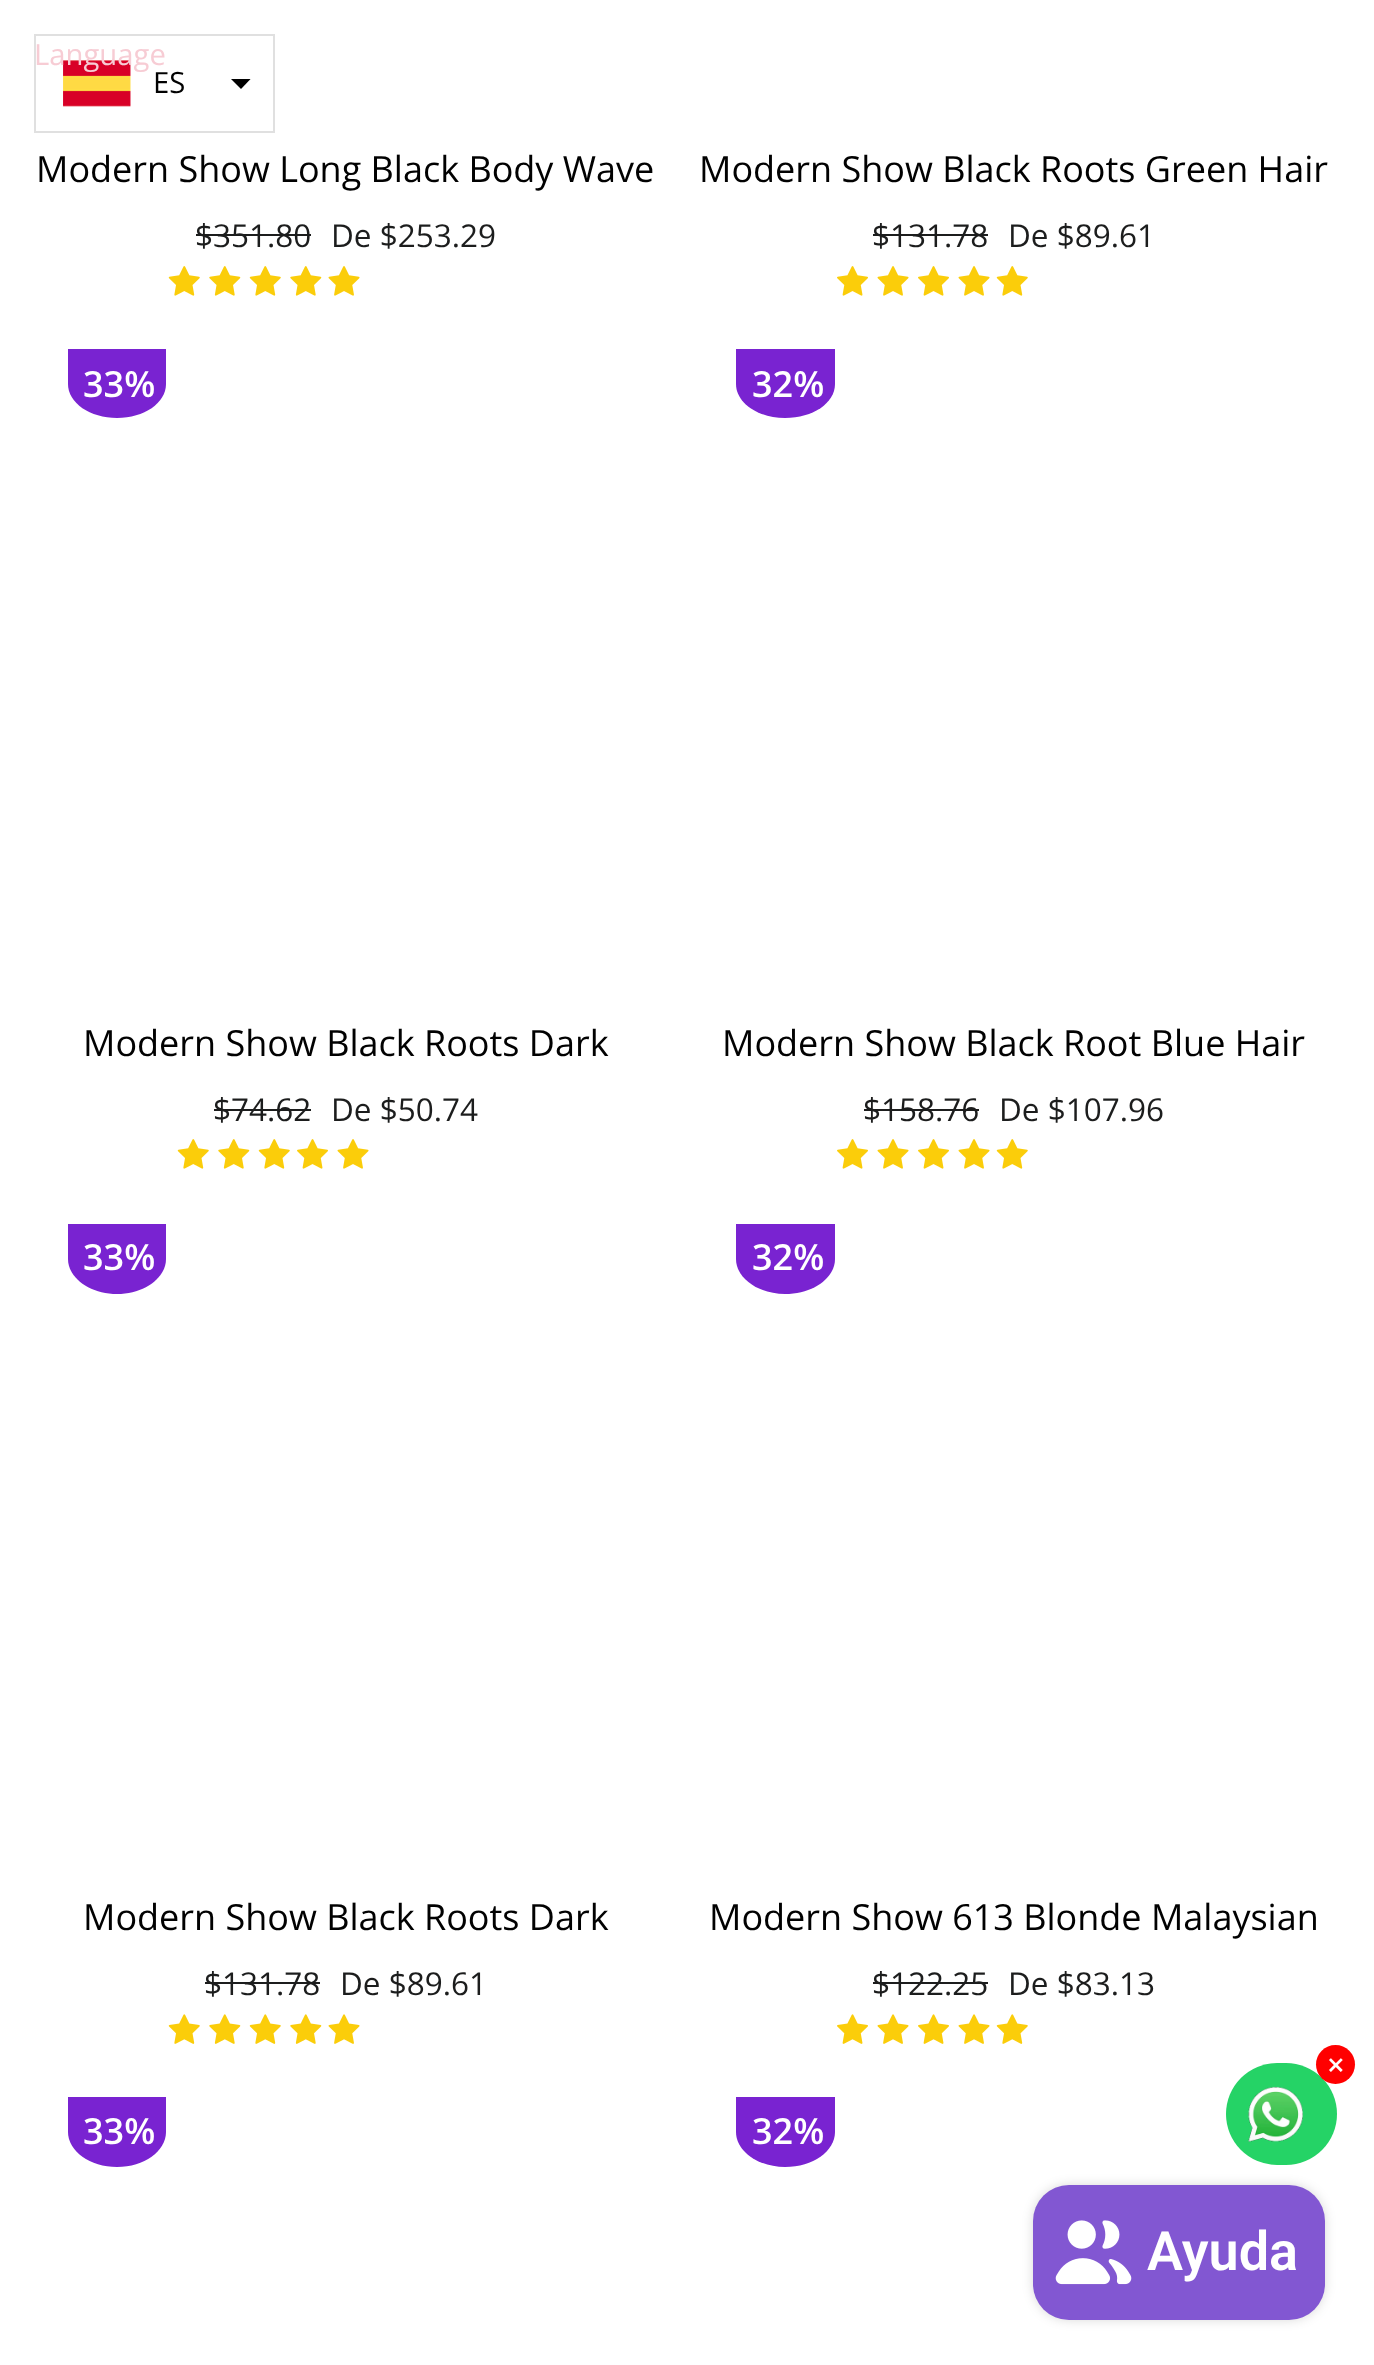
<svg xmlns="http://www.w3.org/2000/svg" width="1374" height="2365">
<style>
.a{font:29.25px Open Sans;fill:#f7ccd4}
.b{font:29.25px Open Sans;fill:#010101}
.c{font:36px Open Sans;fill:#010101}
.d{font:31.5px Open Sans;fill:#1c1d1d}
.e{font:600 36px Open Sans;fill:#fff}
.f{font:600 31px Open Sans;fill:#fff}
.g{font:600 54px Roboto;fill:#fff}
</style>
<defs>
<clipPath id="clip1"><path d="M230 79h22v11H230z"/></clipPath>
</defs>
<rect width="100%" height="100%" fill="#fff"/>
<path fill="none" stroke="#e0e0e0" stroke-width="2" d="M35 35h239v97H35z"/>
<image href="1.png" x="63" y="60" width="68" height="47"/>
<g clip-path="url(#clip1)">
<path fill="#000" fill-rule="evenodd" d="M252 77.5l-11 11.5l-11.5-11.5z"/>
</g>
<path fill="#1c1d1d" d="M196 234h115v2H196z"/>
<image href="2.png" x="168" y="266" width="32" height="30"/>
<image href="3.png" x="209" y="266" width="32" height="30"/>
<image href="2.png" x="249" y="266" width="32" height="30"/>
<image href="3.png" x="290" y="266" width="32" height="30"/>
<image href="4.png" x="328" y="266" width="32" height="30"/>
<path fill="#1c1d1d" d="M873 234h115v2H873z"/>
<image href="5.png" x="837" y="266" width="31" height="30"/>
<image href="4.png" x="877" y="266" width="32" height="30"/>
<image href="5.png" x="918" y="266" width="31" height="30"/>
<image href="4.png" x="958" y="266" width="32" height="30"/>
<image href="2.png" x="996" y="266" width="32" height="30"/>
<path fill="#7923d1" d="M68 349h98v35c0 19-22 34-49 34c-27 0-49-15-49-34z"/>
<path fill="#1c1d1d" d="M214 1109h97v2H214z"/>
<image href="2.png" x="177" y="1139" width="32" height="30"/>
<image href="3.png" x="218" y="1139" width="32" height="30"/>
<image href="2.png" x="258" y="1139" width="32" height="30"/>
<image href="5.png" x="297" y="1139" width="31" height="30"/>
<image href="4.png" x="337" y="1139" width="32" height="30"/>
<path fill="#7923d1" d="M736 349h99v35c0 19-22 34-50 34c-27 0-49-15-49-34z"/>
<path fill="#1c1d1d" d="M864 1109h115v2H864z"/>
<image href="5.png" x="837" y="1139" width="31" height="30"/>
<image href="4.png" x="877" y="1139" width="32" height="30"/>
<image href="5.png" x="918" y="1139" width="31" height="30"/>
<image href="4.png" x="958" y="1139" width="32" height="30"/>
<image href="2.png" x="996" y="1139" width="32" height="30"/>
<path fill="#7923d1" d="M68 1224h98v35c0 19-22 35-49 35c-27 0-49-16-49-35z"/>
<path fill="#1c1d1d" d="M205 1982h115v2H205z"/>
<image href="6.png" x="168" y="2014" width="32" height="30"/>
<image href="7.png" x="209" y="2014" width="32" height="30"/>
<image href="6.png" x="249" y="2014" width="32" height="30"/>
<image href="7.png" x="290" y="2014" width="32" height="30"/>
<image href="8.png" x="328" y="2014" width="32" height="30"/>
<path fill="#7923d1" d="M736 1224h99v35c0 19-22 35-50 35c-27 0-49-16-49-35z"/>
<path fill="#1c1d1d" d="M873 1982h115v2H873z"/>
<image href="9.png" x="837" y="2014" width="31" height="30"/>
<image href="8.png" x="877" y="2014" width="32" height="30"/>
<image href="9.png" x="918" y="2014" width="31" height="30"/>
<image href="8.png" x="958" y="2014" width="32" height="30"/>
<image href="6.png" x="996" y="2014" width="32" height="30"/>
<path fill="#7923d1" d="M68 2097h98v35c0 19-22 35-49 35c-27 0-49-16-49-35z"/>
<path fill="#7923d1" d="M736 2097h99v35c0 19-22 35-50 35c-27 0-49-16-49-35z"/>
<rect fill="#25d366" x="1226" y="2063" width="111" height="102" rx="51"/>
<circle fill="#f00" cx="1335.5" cy="2064.5" r="19.5"/>
<image href="10.png" x="1248" y="2086" width="55" height="56"/>
<rect fill="#00000026" filter="blur(5.5px)" x="1033" y="2185" width="292" height="135" rx="36"/>
<rect fill="#8257d2" x="1033" y="2185" width="292" height="135" rx="36"/>
<image href="11.png" x="1055" y="2220" width="77" height="65"/>
<text class="a" x="34" y="65">Language</text>
<text class="b" x="153" y="93">ES</text>
<text class="c" x="36" y="182">Modern Show Long Black Body Wave</text>
<text class="d" x="195" y="247">$351.80</text>
<text class="d" x="331" y="247">De $253.29</text>
<text class="c" x="699" y="182">Modern Show Black Roots Green Hair</text>
<text class="d" x="872" y="247">$131.78</text>
<text class="d" x="1008" y="247">De $89.61</text>
<text class="e" x="83" y="397">33%</text>
<text class="c" x="83" y="1056">Modern Show Black Roots Dark</text>
<text class="d" x="213" y="1121">$74.62</text>
<text class="d" x="331" y="1121">De $50.74</text>
<text class="e" x="752" y="397">32%</text>
<text class="c" x="722" y="1056">Modern Show Black Root Blue Hair</text>
<text class="d" x="863" y="1121">$158.76</text>
<text class="d" x="999" y="1121">De $107.96</text>
<text class="e" x="83" y="1270">33%</text>
<text class="c" x="83" y="1930">Modern Show Black Roots Dark</text>
<text class="d" x="204" y="1995">$131.78</text>
<text class="d" x="340" y="1995">De $89.61</text>
<text class="e" x="752" y="1270">32%</text>
<text class="c" x="709" y="1930">Modern Show 613 Blonde Malaysian</text>
<text class="d" x="872" y="1995">$122.25</text>
<text class="d" x="1008" y="1995">De $83.13</text>
<text class="e" x="83" y="2144">33%</text>
<text class="e" x="752" y="2144">32%</text>
<text class="f" x="1327" y="2076">×</text>
<text class="g" x="1147" y="2270">Ayuda</text>
</svg>
